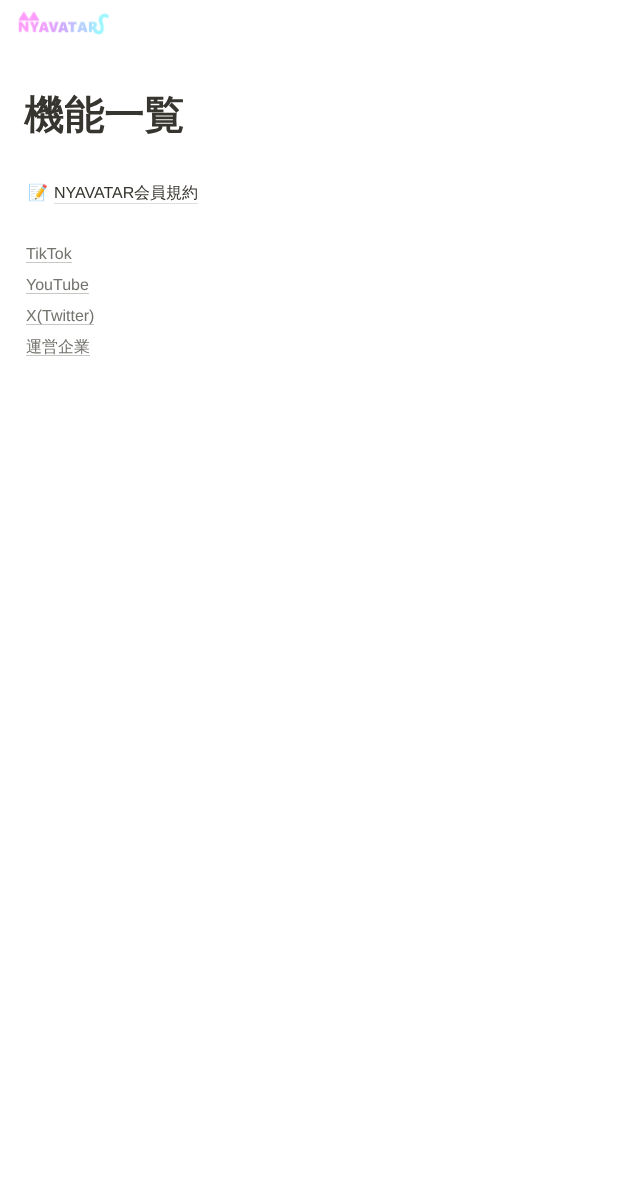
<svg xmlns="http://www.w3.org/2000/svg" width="643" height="1178">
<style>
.a{font:bold 40px WenQuanYi Zen Hei;fill:#37352f}
.b{font:16px Noto Color Emoji;fill:#37352f}
.c{font:16px Liberation Sans;fill:#37352f}
.d{font:500 16px WenQuanYi Zen Hei;fill:#37352f}
.e{font:16px Liberation Sans;fill:#73726d}
.f{font:500 16px WenQuanYi Zen Hei;fill:#73726d}
</style>
<rect width="100%" height="100%" fill="#fff"/>
<image href="1.png" x="18" y="11" width="92" height="24"/>
<path fill="#dfdfde" d="M54 203h144v1H54z"/>
<path fill="#c7c7c5" d="M26 262h46v1H26z"/>
<path fill="#c7c7c5" d="M26 293h63v1H26z"/>
<path fill="#c7c7c5" d="M26 324h68v1H26z"/>
<path fill="#c7c7c5" d="M26 355h64v1H26z"/>
<text class="a" x="24" y="129">機能一覧</text>
<text class="b" x="28" y="198">📝</text>
<text class="c" x="54" y="198">NYAVATAR</text>
<text class="d" x="134" y="198">会員規約</text>
<text class="e" x="26" y="259">TikTok</text>
<text class="e" x="26" y="290">YouTube</text>
<text class="e" x="26" y="321">X(Twitter)</text>
<text class="f" x="26" y="352">運営企業</text>
</svg>
